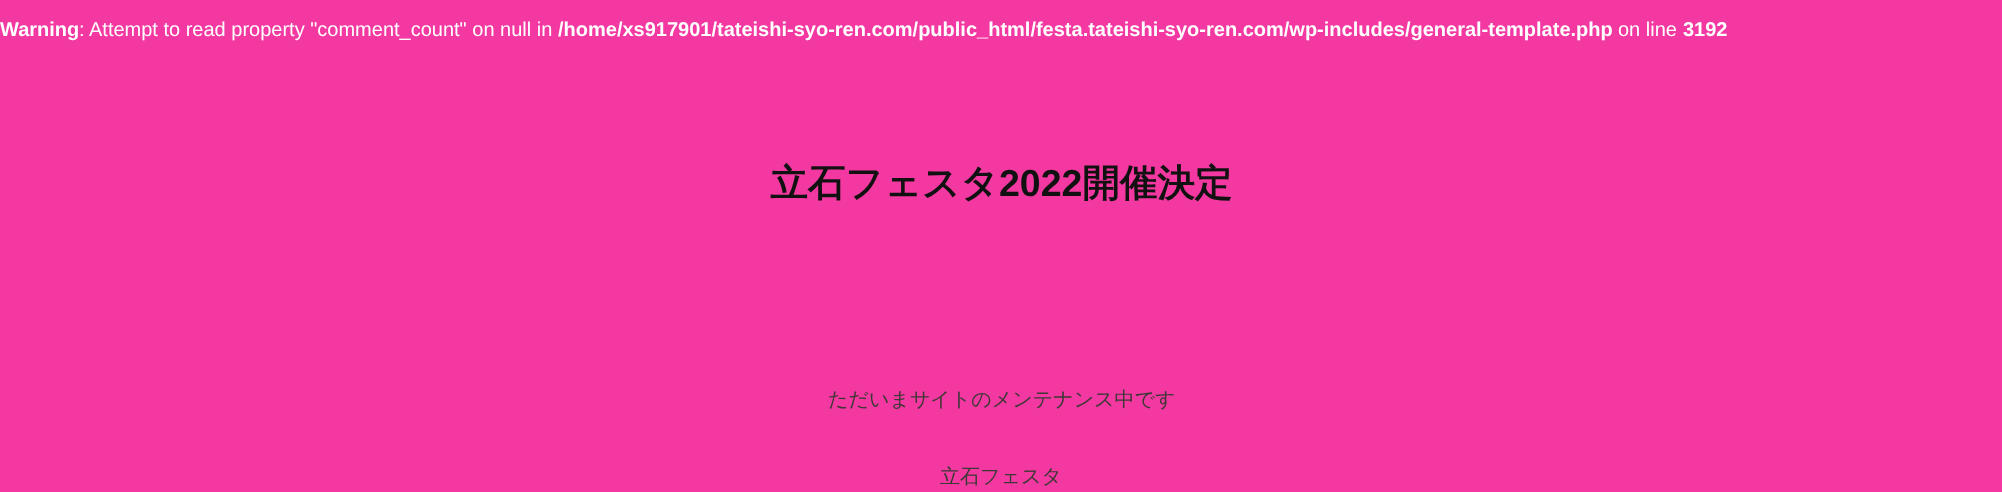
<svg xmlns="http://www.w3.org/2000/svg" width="2002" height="492">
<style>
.a{font:bold 20px Liberation Sans;fill:#fff}
.b{font:20px Liberation Sans;fill:#fff}
.c{font:bold 37.5px WenQuanYi Zen Hei;fill:#111}
.d{font:bold 37.5px Liberation Sans;fill:#111}
.e{font:500 20px WenQuanYi Zen Hei;fill:#3c3835}
</style>
<rect width="100%" height="100%" fill="#f339a1"/>
<text class="a" x="0" y="36">Warning</text>
<text class="b" x="79" y="36">:</text>
<text class="b" x="89" y="36">Attempt to read property "comment_count" on null in</text>
<text class="a" x="558" y="36">/home/xs917901/tateishi-syo-ren.com/public_html/festa.tateishi-syo-ren.com/wp-includes/general-template.php</text>
<text class="b" x="1618" y="36">on line</text>
<text class="a" x="1683" y="36">3192</text>
<text class="c" x="770" y="196">立石フェスタ</text>
<text class="d" x="999" y="196">2022</text>
<text class="c" x="1082" y="196">開催決定</text>
<text class="e" x="828" y="406">ただいまサイトのメンテナンス中です</text>
<text class="e" x="940" y="483">立石フェスタ</text>
</svg>
